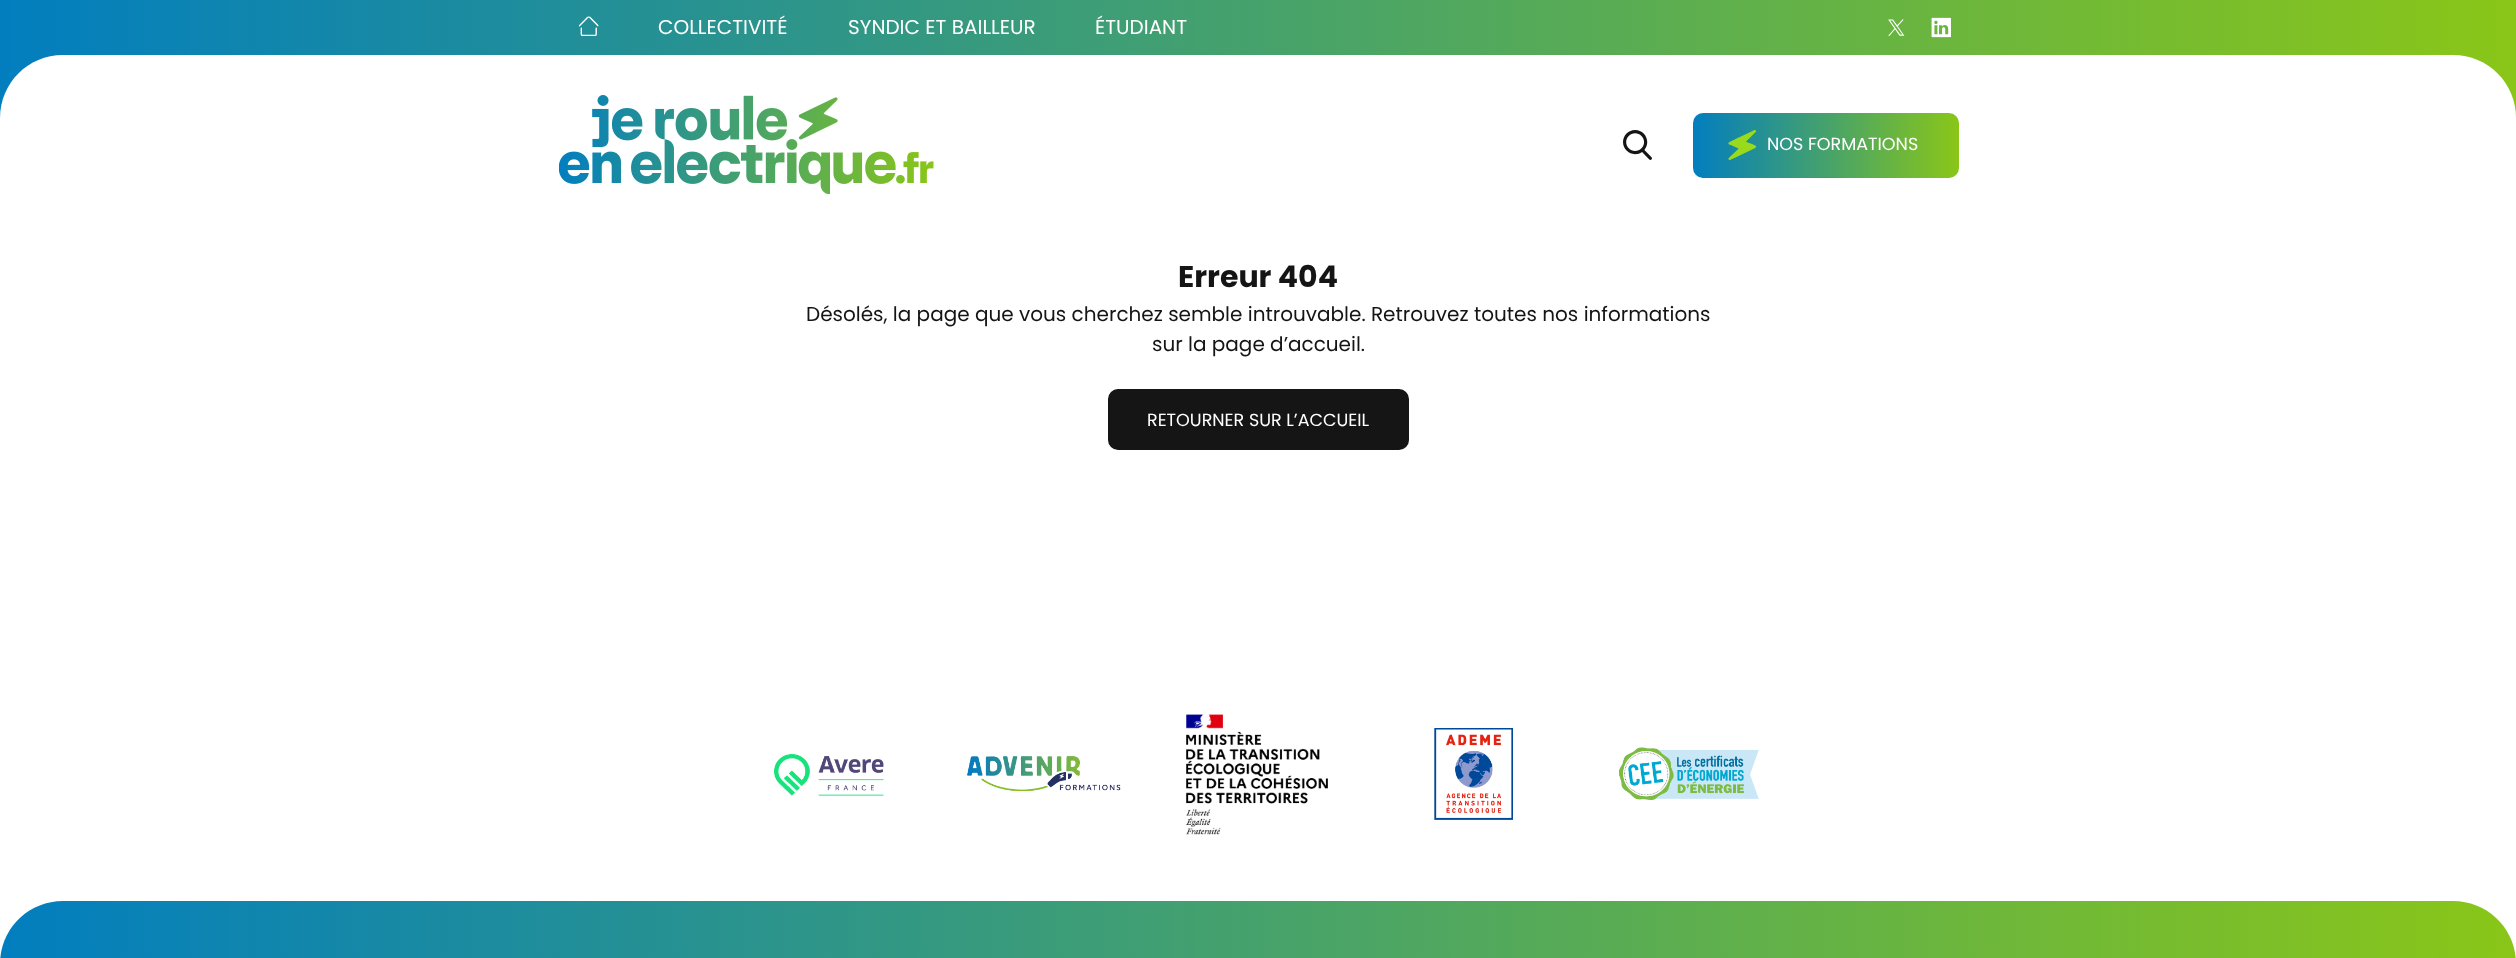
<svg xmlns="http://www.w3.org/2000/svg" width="2516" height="958">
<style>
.a{font:20px Poppins;fill:#fff}
.b{font:17.5px Poppins;fill:#fff}
.c{font:bold 30px Poppins;fill:#151515}
.d{font:20px Poppins;fill:#151515}
</style>
<defs>
<linearGradient id="g1" gradientUnits="userSpaceOnUse" x1="0" y1="59" x2="2516" y2="59"><stop offset="0" stop-color="#027ebf"/><stop offset="1" stop-color="#8ac618"/></linearGradient>
<linearGradient id="g2" gradientUnits="userSpaceOnUse" x1="1693" y1="145" x2="1959" y2="145"><stop offset="0" stop-color="#027ebf"/><stop offset="1" stop-color="#8ac618"/></linearGradient>
<linearGradient id="g3" gradientUnits="userSpaceOnUse" x1="0" y1="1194" x2="2516" y2="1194"><stop offset="0" stop-color="#027ebf"/><stop offset="1" stop-color="#8ac618"/></linearGradient>
</defs>
<rect width="100%" height="100%" fill="#fff"/>
<path fill="url(#g1)" d="M0 0h2516v118H0z"/>
<image href="1.png" x="579" y="16" width="20" height="20"/>
<image href="2.png" x="1888" y="19" width="17" height="17"/>
<image href="3.png" x="1931" y="17" width="20" height="21"/>
<path fill="#fff" d="M63 55h2390c35 0 63 28 63 63v136h-2516v-136c0-35 28-63 63-63z"/>
<image href="4.png" x="559" y="95" width="375" height="99"/>
<image href="5.png" x="1623" y="130" width="29" height="30"/>
<rect fill="url(#g2)" x="1693" y="113" width="266" height="65" rx="10"/>
<image href="6.png" x="1728" y="130" width="29" height="30"/>
<path fill="#1515151a" d="M1825 177.5l20 .5h-40z"/>
<rect fill="#151515" x="1108" y="389" width="301" height="61" rx="10"/>
<image href="7.png" x="774" y="754" width="110" height="42"/>
<image href="8.png" x="967" y="756" width="154" height="36"/>
<image href="9.png" x="1186" y="714" width="142" height="121"/>
<image href="10.png" x="1434" y="728" width="79" height="92"/>
<image href="11.png" x="1619" y="747" width="140" height="53"/>
<path fill="url(#g3)" d="M63 901h2390c35 0 63 28 63 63v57h-2516v-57c0-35 28-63 63-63z"/>
<text class="a" x="658" y="34">COLLECTIVITÉ</text>
<text class="a" x="848" y="34">SYNDIC ET BAILLEUR</text>
<text class="a" x="1095" y="34">ÉTUDIANT</text>
<text class="b" x="1767" y="150">NOS FORMATIONS</text>
<text class="c" x="1178" y="287">Erreur 404</text>
<text class="d" x="806" y="321">Désolés, la page que vous cherchez semble introuvable. Retrouvez toutes nos informations</text>
<text class="d" x="1152" y="351">sur la page d’accueil.</text>
<text class="b" x="1147" y="426">RETOURNER SUR L’ACCUEIL</text>
</svg>
